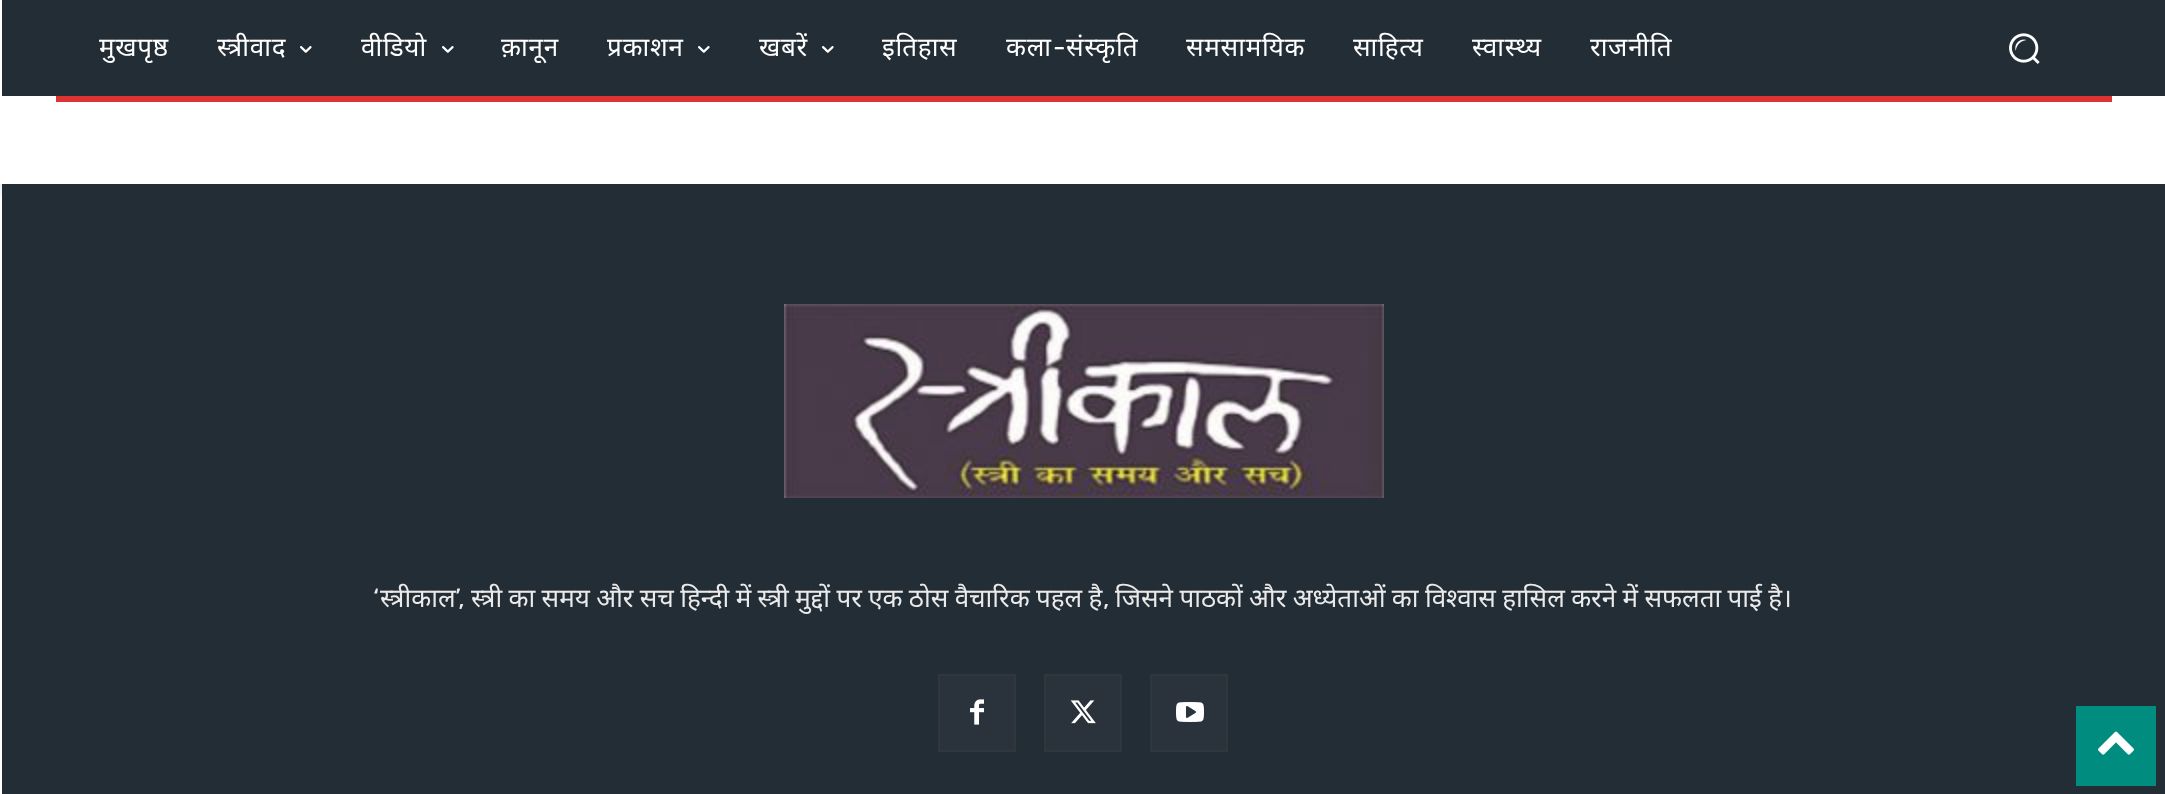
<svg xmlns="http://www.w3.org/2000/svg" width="2165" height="794">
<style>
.a{font:26px Noto Sans;letter-spacing:0.75px;fill:#fff}
.b{font:26px Rubik;letter-spacing:0.75px;fill:#fff}
.c{font:26px Rubik;fill:#eaeaea}
.d{font:26px Noto Sans;fill:#eaeaea}
</style>
<defs>
<clipPath id="clip1"><path d="M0 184h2v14H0z"/></clipPath>
</defs>
<rect width="100%" height="100%" fill="#fff"/>
<g clip-path="url(#clip1)">
<path fill="#0000001f" filter="blur(10px)" d="M-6 -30h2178v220H-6z"/>
</g>
<path fill="#232d35" d="M2 0h2163v96H2z"/>
<image href="1.png" x="300" y="46" width="12" height="7"/>
<image href="1.png" x="442" y="46" width="12" height="7"/>
<image href="1.png" x="698" y="46" width="12" height="7"/>
<image href="1.png" x="822" y="46" width="12" height="7"/>
<image href="2.png" x="2009" y="33" width="31" height="31"/>
<path fill="#d33" d="M56 96h2056v6H56z"/>
<path fill="#232d35" d="M2 184h2163v610H2z"/>
<image href="3.png" x="784" y="304" width="600" height="194"/>
<path fill="#2a333b" stroke="#2f363c" stroke-width="2" d="M939 675h76v76H939z"/>
<image href="4.png" x="970" y="699" width="14" height="26"/>
<path fill="#2a333b" stroke="#2f363c" stroke-width="2" d="M1045 675h76v76H1045z"/>
<image href="5.png" x="1070" y="700" width="26" height="24"/>
<path fill="#2a333b" stroke="#2f363c" stroke-width="2" d="M1151 675h76v76H1151z"/>
<image href="6.png" x="1176" y="702" width="28" height="20"/>
<path fill="#008d7f" d="M2076 706h80v80H2076z"/>
<image href="7.png" x="2098" y="731" width="36" height="24"/>
<text class="a" x="99" y="56">मुखपृष्ठ</text>
<text class="a" x="217" y="56">स्त्रीवाद</text>
<text class="a" x="361" y="56">वीडियो</text>
<text class="a" x="501" y="56">क़ानून</text>
<text class="a" x="607" y="56">प्रकाशन</text>
<text class="a" x="759" y="56">खबरें</text>
<text class="a" x="882" y="56">इतिहास</text>
<text class="a" x="1006" y="56">कला</text>
<text class="b" x="1053" y="56">-</text>
<text class="a" x="1066" y="56">संस्कृति</text>
<text class="a" x="1186" y="56">समसामयिक</text>
<text class="a" x="1353" y="56">साहित्य</text>
<text class="a" x="1472" y="56">स्वास्थ्य</text>
<text class="a" x="1590" y="56">राजनीति</text>
<text class="c" x="373" y="607">‘</text>
<text class="d" x="380" y="607">स्त्रीकाल</text>
<text class="c" x="455" y="607">’,</text>
<text class="d" x="471" y="607" word-spacing="-0.4">स्त्री का समय और सच हिन्दी में स्त्री मुद्दों पर एक ठोस वैचारिक पहल है</text>
<text class="c" x="1103" y="607">,</text>
<text class="d" x="1115" y="607" word-spacing="-0.4">जिसने पाठकों और अध्येताओं का विश्वास हासिल करने में सफलता पाई है।</text>
</svg>
